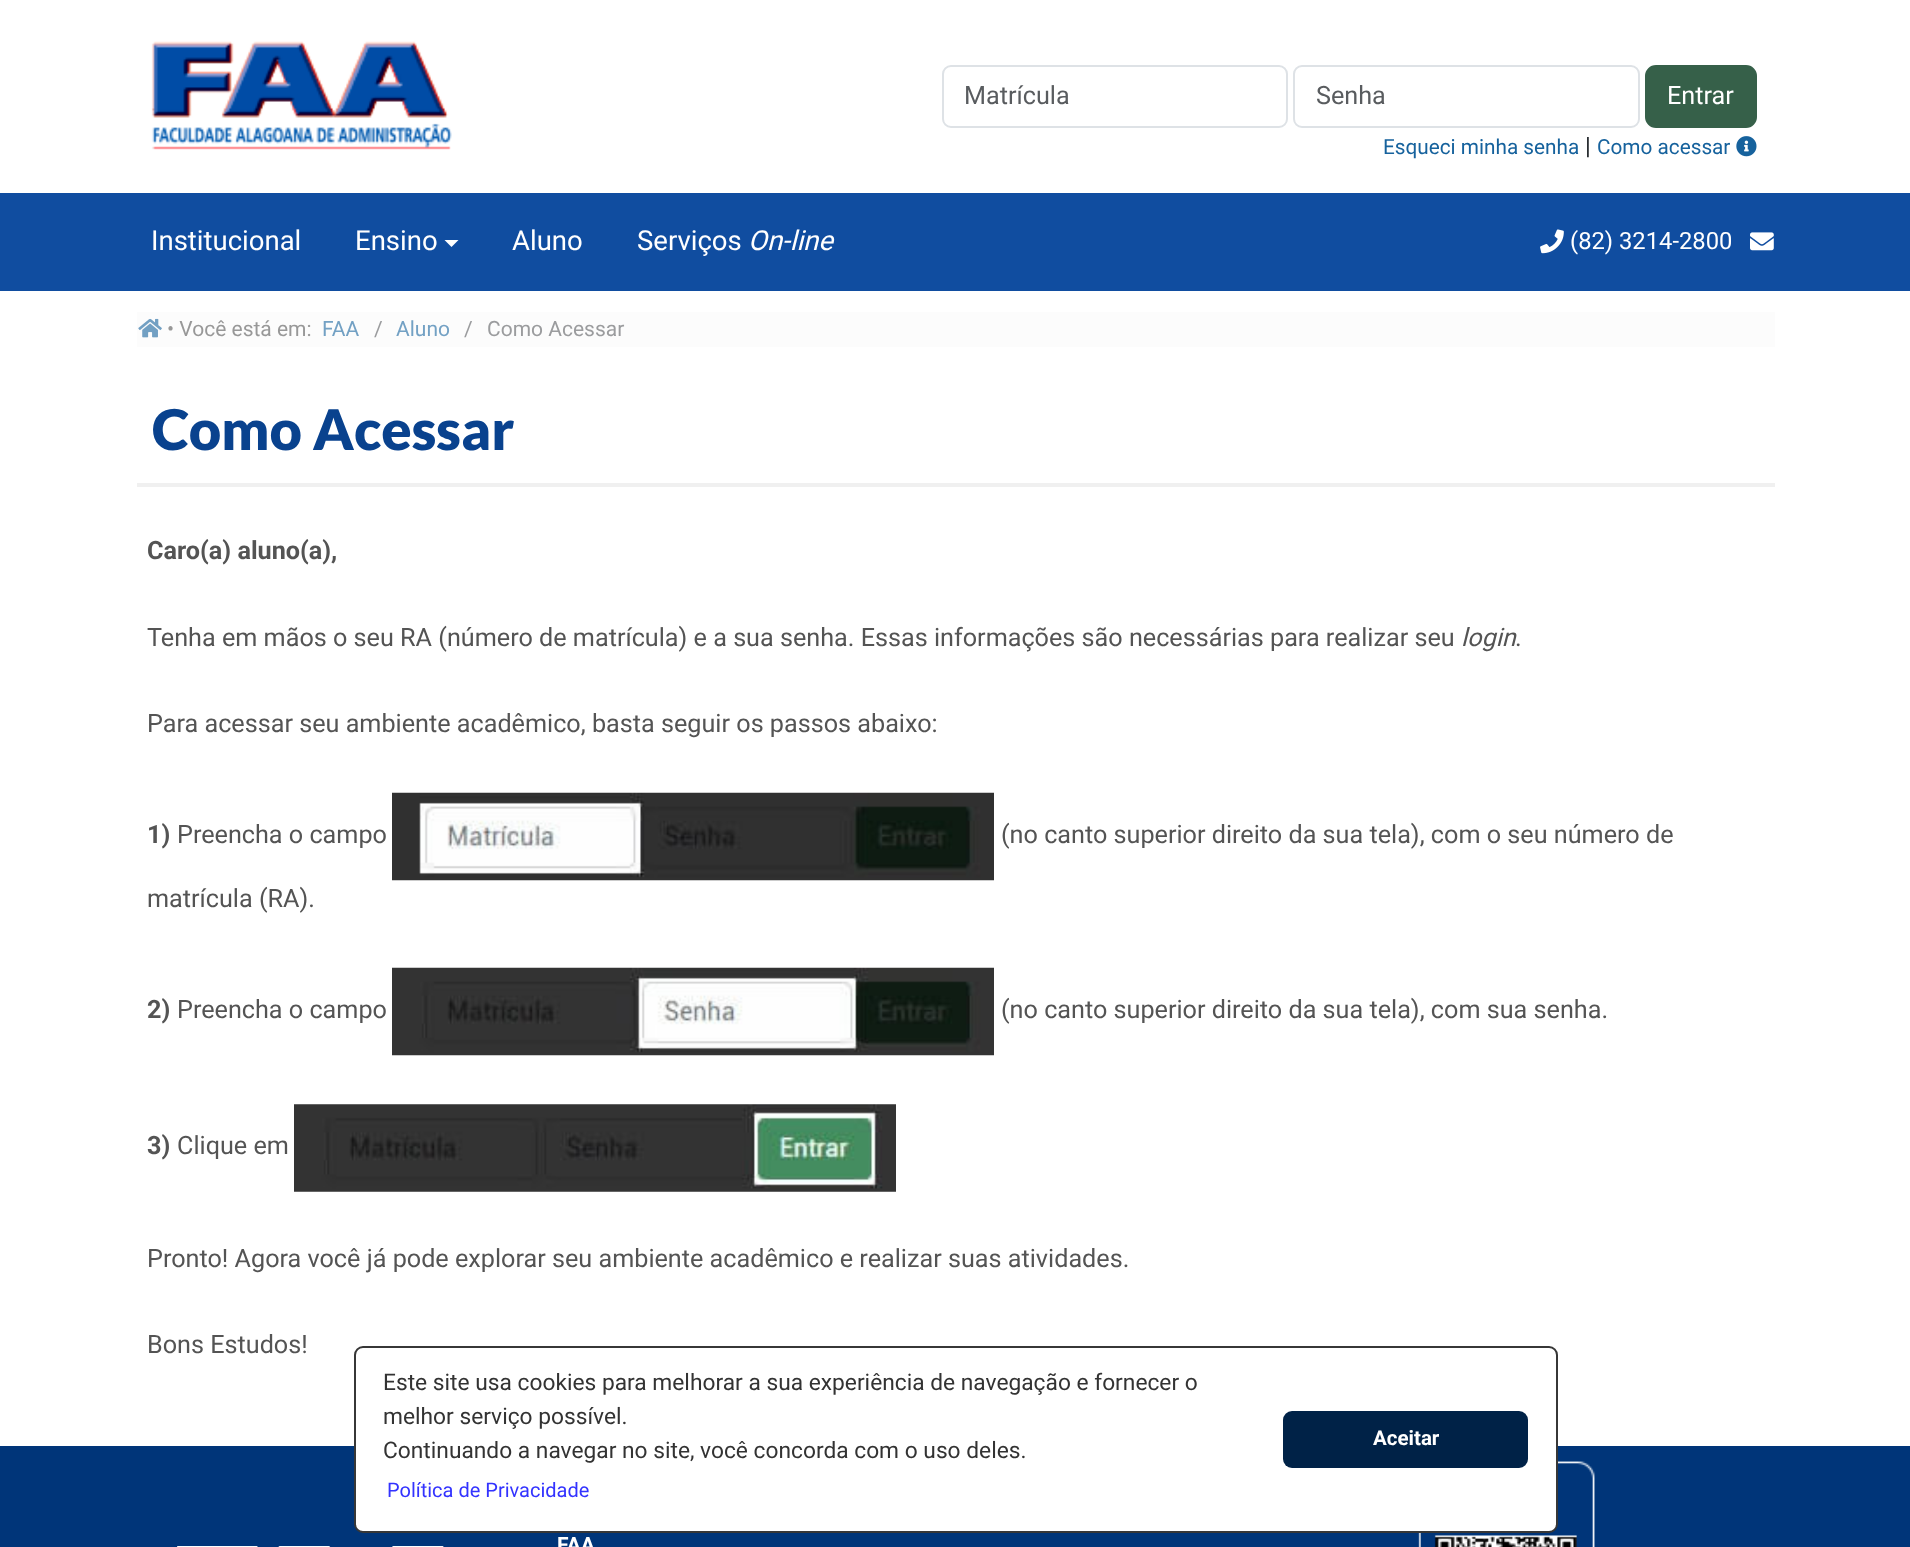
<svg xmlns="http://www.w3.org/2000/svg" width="1910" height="1547">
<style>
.a{font:25.2px Roboto;fill:#595c5f}
.b{font:25.2px Roboto;fill:#fff}
.c{font:20.75px Roboto;fill:#16629d}
.d{font:23.75px Roboto;fill:#212529}
.e{font:27.5px Roboto;fill:#fff}
.f{font:italic 27.5px Roboto;fill:#fff}
.g{font:23.75px Roboto;fill:#fff}
.h{font:21px Roboto;fill:#989898}
.i{font:21px Roboto;fill:#73a1c4}
.j{font:21px Roboto;fill:#9b9c9e}
.k{font:900 56px Lato;fill:#09428e}
.l{font:bold 25.2px Roboto;fill:#545454}
.m{font:25.2px Roboto;fill:#545454}
.n{font:italic 25.2px Roboto;fill:#545454}
.o{font:22.75px Roboto;fill:#333}
.p{font:20px Roboto;fill:#33f}
.q{font:bold 20.5px Roboto;fill:#fff}
.r{font:bold 21px Roboto;fill:#fff}
</style>
<rect width="100%" height="100%" fill="#fff"/>
<image href="1.png" x="151" y="41" width="301" height="109"/>
<rect fill="none" stroke="#dee2e6" stroke-width="2" x="943" y="66" width="344" height="61" rx="8"/>
<rect fill="none" stroke="#dee2e6" stroke-width="2" x="1294" y="66" width="345" height="61" rx="8"/>
<rect fill="#366049" stroke="#366049" stroke-width="2" x="1646" y="66" width="110" height="61" rx="10"/>
<image href="2.png" x="1736" y="136" width="21" height="21"/>
<path fill="#104da0" d="M0 193h1910v98H0z"/>
<path fill="#fff" d="M444.5 240h14l-7 7z"/>
<image href="3.png" x="1540" y="229" width="24" height="25"/>
<image href="4.png" x="1750" y="232" width="24" height="19"/>
<path fill="#fcfcfc" d="M137 312h1638v35H137z"/>
<image href="5.png" x="138" y="318" width="24" height="20"/>
<path fill="#f0f0f0" d="M137 483h1638v4H137z"/>
<image href="6.png" x="392" y="792" width="602" height="89"/>
<image href="7.png" x="392" y="967" width="602" height="89"/>
<image href="8.png" x="294" y="1104" width="602" height="88"/>
<path fill="#003579" d="M0 1446h1910v101H0z"/>
<image href="10.png" x="1418" y="1461" width="177" height="86"/>
<rect fill="#fff" stroke="#373737" stroke-width="2" x="355" y="1347" width="1202" height="185" rx="8"/>
<rect fill="#002247" x="1283" y="1411" width="245" height="57" rx="9"/>
<image href="9.png" x="177" y="1546" width="267" height="1"/>
<text class="a" x="964" y="104">Matrícula</text>
<text class="a" x="1316" y="104">Senha</text>
<text class="b" x="1667" y="104">Entrar</text>
<text class="c" x="1383" y="154">Esqueci minha senha</text>
<text class="d" x="1585" y="154">|</text>
<text class="c" x="1597" y="154">Como acessar</text>
<text class="e" x="151" y="250">Institucional</text>
<text class="e" x="355" y="250">Ensino</text>
<text class="e" x="512" y="250">Aluno</text>
<text class="e" x="637" y="250">Serviços</text>
<text class="f" x="748" y="250">On-line</text>
<text class="g" x="1570" y="249">(82) 3214-2800</text>
<text class="h" x="167" y="336">• Você está em:</text>
<text class="i" x="322" y="336">FAA</text>
<text class="j" x="374" y="336">/</text>
<text class="i" x="396" y="336">Aluno</text>
<text class="j" x="464" y="336">/</text>
<text class="j" x="487" y="336">Como Acessar</text>
<text class="k" x="152" y="450">Como Acessar</text>
<text class="l" x="147" y="559">Caro(a) aluno(a),</text>
<text class="m" x="147" y="646">Tenha em mãos o seu RA (número de matrícula) e a sua senha. Essas informações são necessárias para realizar seu</text>
<text class="n" x="1461" y="646">login</text>
<text class="m" x="1515" y="646">.</text>
<text class="m" x="147" y="732">Para acessar seu ambiente acadêmico, basta seguir os passos abaixo:</text>
<text class="l" x="147" y="843">1)</text>
<text class="m" x="177" y="843">Preencha o campo</text>
<text class="m" x="1001" y="843">(no canto superior direito da sua tela), com o seu número de</text>
<text class="m" x="147" y="907">matrícula (RA).</text>
<text class="l" x="147" y="1018">2)</text>
<text class="m" x="177" y="1018">Preencha o campo</text>
<text class="m" x="1001" y="1018">(no canto superior direito da sua tela), com sua senha.</text>
<text class="l" x="147" y="1154">3)</text>
<text class="m" x="177" y="1154">Clique em</text>
<text class="m" x="147" y="1267">Pronto! Agora você já pode explorar seu ambiente acadêmico e realizar suas atividades.</text>
<text class="m" x="147" y="1353">Bons Estudos!</text>
<text class="o" x="383" y="1390">Este site usa cookies para melhorar a sua experiência de navegação e fornecer o</text>
<text class="o" x="383" y="1424">melhor serviço possível.</text>
<text class="o" x="383" y="1458">Continuando a navegar no site, você concorda com o uso deles.</text>
<text class="p" x="387" y="1497">Política de Privacidade</text>
<text class="q" x="1373" y="1445">Aceitar</text>
<text class="r" x="557" y="1552">FAA</text>
</svg>
